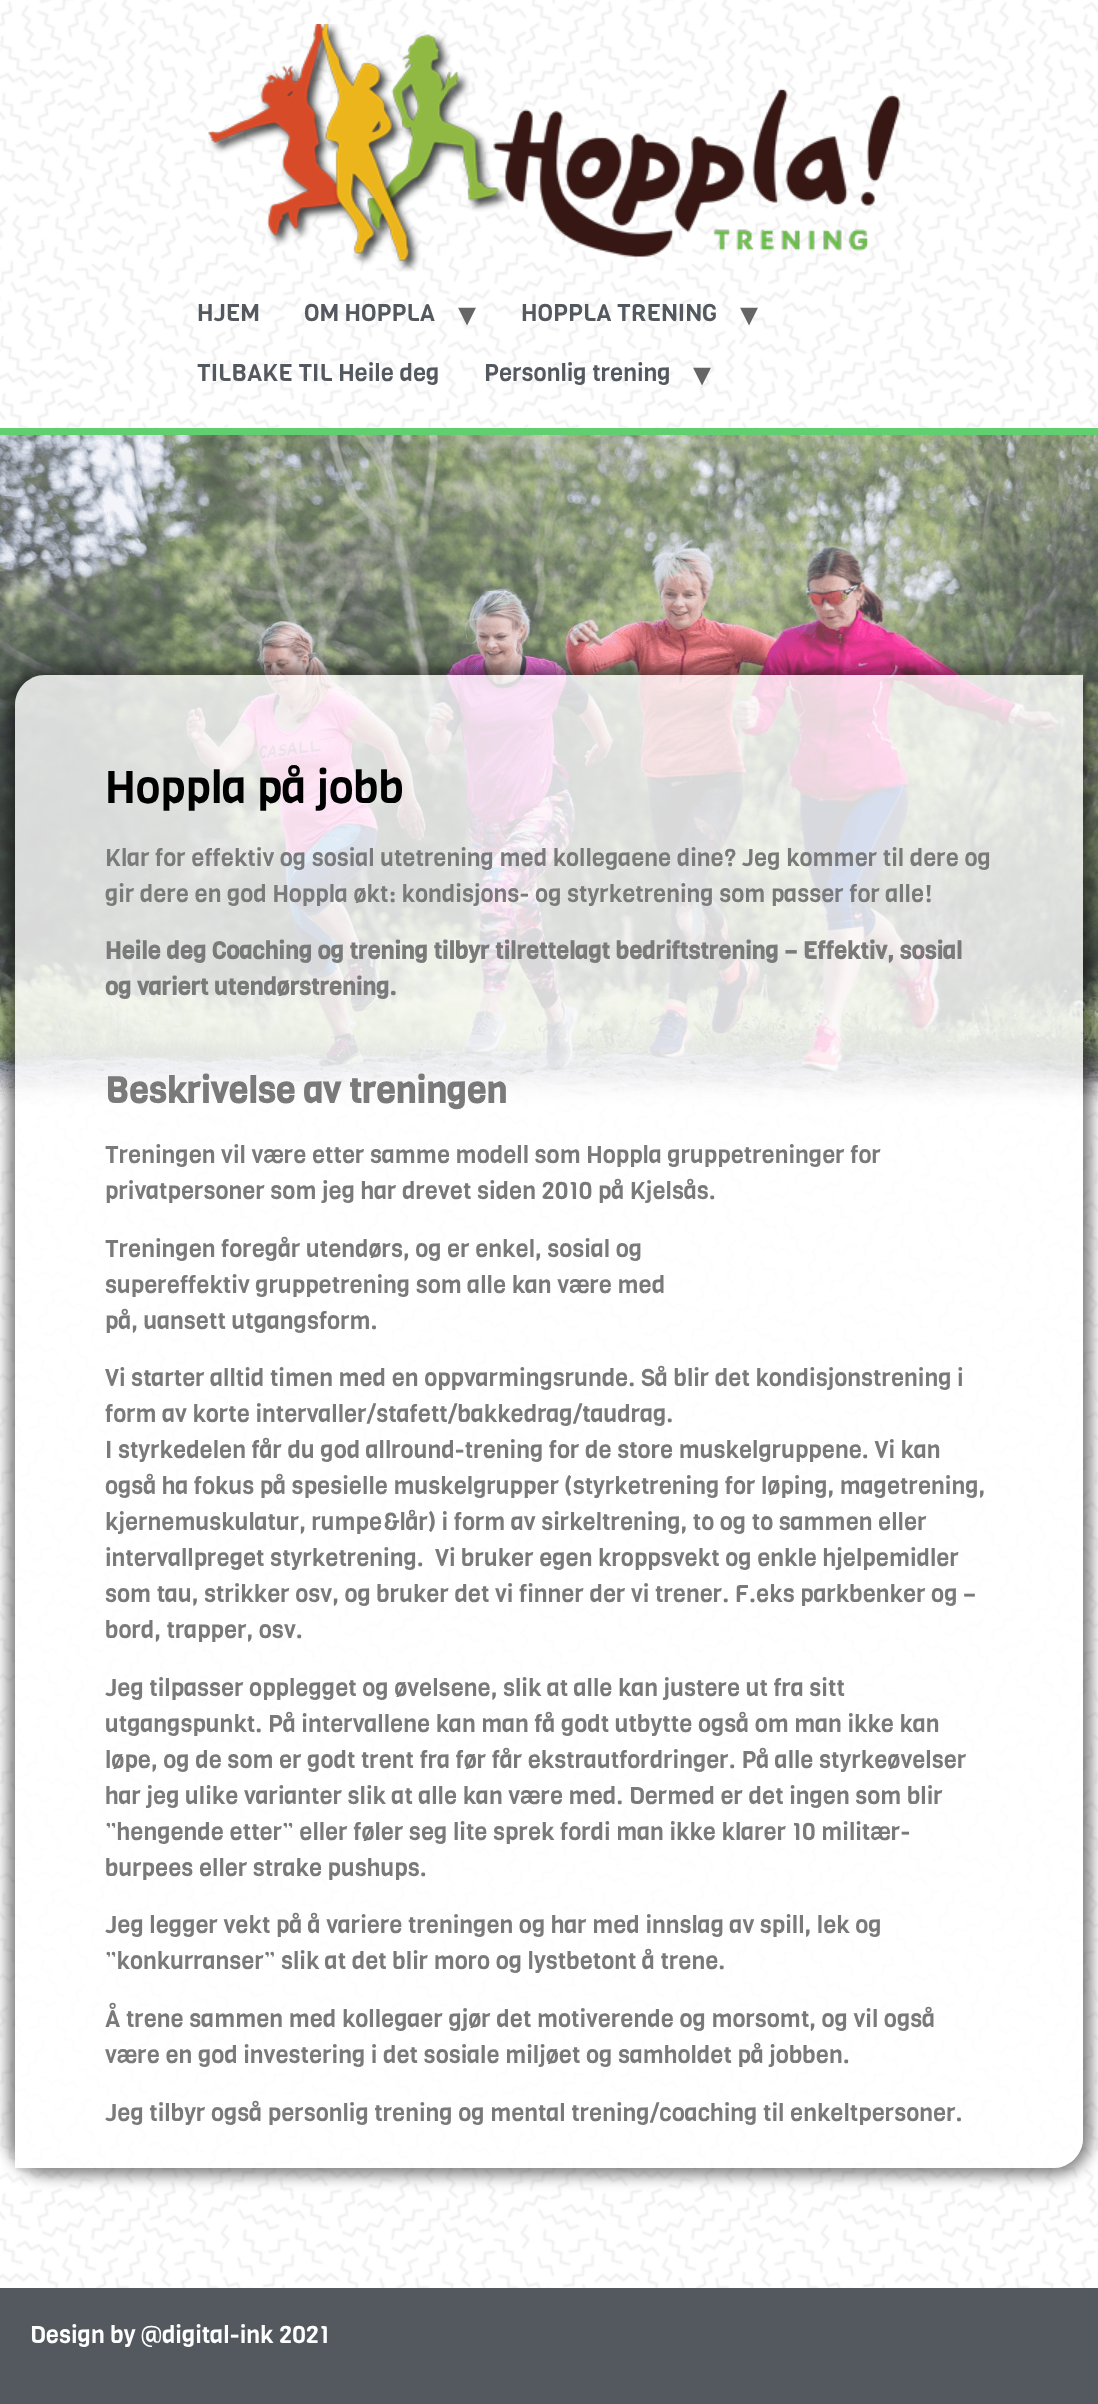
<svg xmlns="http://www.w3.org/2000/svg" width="1098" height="2404">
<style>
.a{font:24px Viga;fill:#54595f}
.b{font:36px DejaVu Sans;fill:#666}
.c{font:45px Viga;fill:#000}
.d{font:24px Viga;fill:#7a7a7a}
.e{font:bold 24px Viga;fill:#7a7a7a}
.f{font:bold 36px Viga;fill:#7a7a7a}
.g{font:24px Viga;fill:#fff}
</style>
<defs>
<clipPath id="clip1"><path d="M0 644h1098v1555h-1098zm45 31h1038v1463c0 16.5-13.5 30-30 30h-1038v-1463c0-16.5 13.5-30 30-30z" clip-rule="evenodd"/></clipPath>
</defs>
<rect width="100%" height="100%" fill="#fff"/>
<image href="1.png" x="0" y="0" width="1098" height="2288"/>
<image href="2.png" x="208" y="24" width="693" height="248"/>
<image href="3.png" x="0" y="435" width="1098" height="672"/>
<path fill="#61ce70" d="M0 428h1098v7H0z"/>
<path fill="#ffffff36" d="M0 435h1098v1748H0z"/>
<g clip-path="url(#clip1)">
<rect fill="#00000080" filter="blur(7.5px)" x="8" y="668" width="1083" height="1507" rx="38"/>
</g>
<path fill="#ffffffcc" d="M45 675h1038v1463c0 16.5-13.5 30-30 30h-1038v-1463c0-16.5 13.5-30 30-30z"/>
<path fill="#54595f" d="M0 2288h1098v116H0z"/>
<text class="a" x="197" y="321">HJEM</text>
<text class="a" x="304" y="321">OM HOPPLA</text>
<text class="b" x="458" y="326">▾</text>
<text class="a" x="521" y="321">HOPPLA TRENING</text>
<text class="b" x="740" y="326">▾</text>
<text class="a" x="197" y="381">TILBAKE TIL Heile deg</text>
<text class="a" x="484" y="381">Personlig trening</text>
<text class="b" x="693" y="386">▾</text>
<text class="c" x="105" y="803">Hoppla på jobb</text>
<text class="d" x="105" y="866">Klar for effektiv og sosial utetrening med kollegaene dine? Jeg kommer til dere og</text>
<text class="d" x="105" y="902">gir dere en god Hoppla økt: kondisjons- og styrketrening som passer for alle!</text>
<text class="e" x="105" y="959">Heile deg Coaching og trening tilbyr tilrettelagt bedriftstrening – Effektiv, sosial</text>
<text class="e" x="105" y="995">og variert utendørstrening.</text>
<text class="f" x="105" y="1103">Beskrivelse av treningen</text>
<text class="d" x="105" y="1163">Treningen vil være etter samme modell som Hoppla gruppetreninger for</text>
<text class="d" x="105" y="1199">privatpersoner som jeg har drevet siden 2010 på Kjelsås.</text>
<text class="d" x="105" y="1257">Treningen foregår utendørs, og er enkel, sosial og</text>
<text class="d" x="105" y="1293">supereffektiv gruppetrening som alle kan være med</text>
<text class="d" x="105" y="1329">på, uansett utgangsform.</text>
<text class="d" x="105" y="1386">Vi starter alltid timen med en oppvarmingsrunde. Så blir det kondisjonstrening i</text>
<text class="d" x="105" y="1422">form av korte intervaller/stafett/bakkedrag/taudrag.</text>
<text class="d" x="105" y="1458">I styrkedelen får du god allround-trening for de store muskelgruppene. Vi kan</text>
<text class="d" x="105" y="1494">også ha fokus på spesielle muskelgrupper (styrketrening for løping, magetrening,</text>
<text class="d" x="105" y="1530">kjernemuskulatur, rumpe&amp;lår) i form av sirkeltrening, to og to sammen eller</text>
<text class="d" xml:space="preserve" x="105" y="1566">intervallpreget styrketrening.  Vi bruker egen kroppsvekt og enkle hjelpemidler</text>
<text class="d" x="105" y="1602">som tau, strikker osv, og bruker det vi finner der vi trener. F.eks parkbenker og –</text>
<text class="d" x="105" y="1638">bord, trapper, osv.</text>
<text class="d" x="105" y="1696">Jeg tilpasser opplegget og øvelsene, slik at alle kan justere ut fra sitt</text>
<text class="d" x="105" y="1732">utgangspunkt. På intervallene kan man få godt utbytte også om man ikke kan</text>
<text class="d" x="105" y="1768">løpe, og de som er godt trent fra før får ekstrautfordringer. På alle styrkeøvelser</text>
<text class="d" x="105" y="1804">har jeg ulike varianter slik at alle kan være med. Dermed er det ingen som blir</text>
<text class="d" x="105" y="1840">”hengende etter” eller føler seg lite sprek fordi man ikke klarer 10 militær-</text>
<text class="d" x="105" y="1876">burpees eller strake pushups.</text>
<text class="d" x="105" y="1933">Jeg legger vekt på å variere treningen og har med innslag av spill, lek og</text>
<text class="d" x="105" y="1969">”konkurranser” slik at det blir moro og lystbetont å trene.</text>
<text class="d" x="105" y="2027">Å trene sammen med kollegaer gjør det motiverende og morsomt, og vil også</text>
<text class="d" x="105" y="2063">være en god investering i det sosiale miljøet og samholdet på jobben.</text>
<text class="d" x="105" y="2121">Jeg tilbyr også personlig trening og mental trening/coaching til enkeltpersoner.</text>
<text class="g" x="30" y="2343">Design by @digital-ink 2021</text>
</svg>
